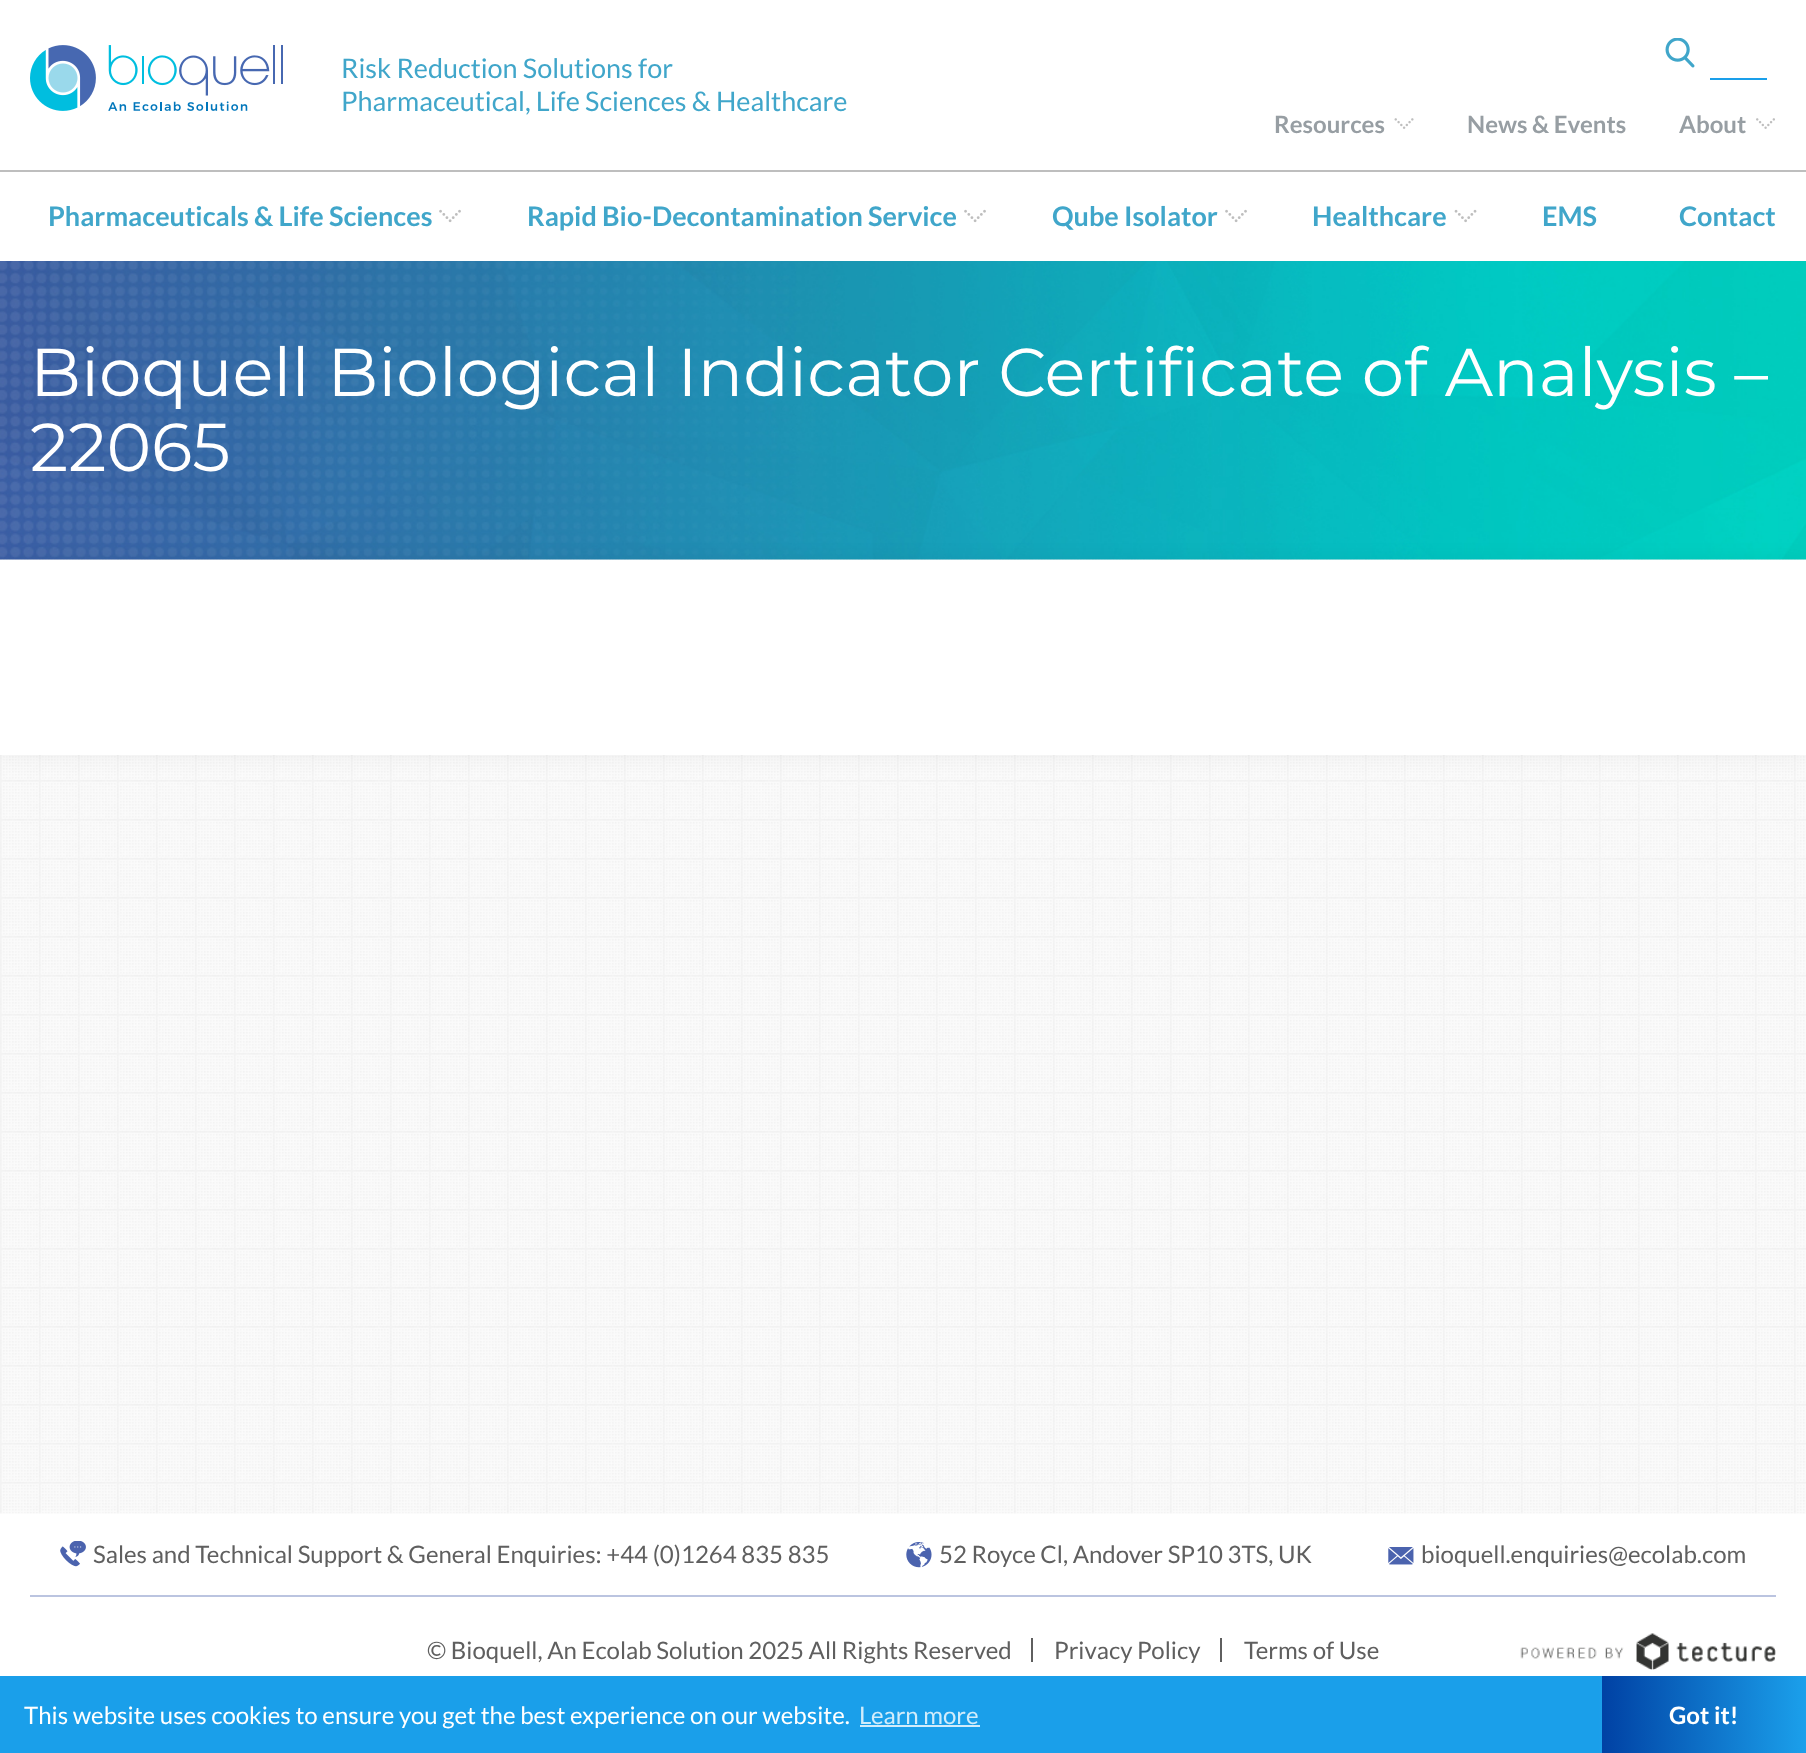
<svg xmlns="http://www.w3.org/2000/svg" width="1806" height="1753">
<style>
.a{font:27px Lato;fill:#40a6ca}
.b{font:bold 24px Lato;fill:#979ea3}
.c{font:bold 27px Lato;fill:#40a6ca}
.d{font:67.5px Montserrat;fill:#fff}
.e{font:24px Lato;fill:#5f5f5f}
.f{font:24px Lato;fill:#fff}
.g{font:24px Lato;fill:#d1ecfb}
.h{font:bold 24px Lato;fill:#fff}
</style>
<defs>
<linearGradient id="g1" gradientUnits="userSpaceOnUse" x1="1602" y1="1715" x2="1398" y2="1715"><stop offset="0" stop-color="#1ba0eb"/><stop offset="1" stop-color="#0041a4"/></linearGradient>
<linearGradient id="g2" gradientUnits="userSpaceOnUse" x1="1806" y1="1715" x2="1602" y2="1715"><stop offset="0" stop-color="#1ba0eb"/><stop offset="1" stop-color="#0041a4"/></linearGradient>
</defs>
<rect width="100%" height="100%" fill="#fff"/>
<image href="1.png" x="0" y="559" width="1806" height="955"/>
<image href="2.png" x="30" y="45" width="253" height="66"/>
<image href="3.png" x="1665" y="38" width="30" height="30"/>
<path fill="#1a9fea" d="M1710 78h57v2H1710z"/>
<image href="4.png" x="1394" y="118" width="20" height="11"/>
<image href="5.png" x="1756" y="118" width="19" height="11"/>
<path fill="#bebebe" d="M0 170h1806v2H0z"/>
<image href="6.png" x="439" y="209" width="22" height="14"/>
<image href="6.png" x="964" y="209" width="22" height="14"/>
<image href="6.png" x="1225" y="209" width="22" height="14"/>
<image href="7.png" x="1454" y="209" width="23" height="14"/>
<image href="8.png" x="0" y="261" width="1806" height="299"/>
<path fill="#0000000d" filter="blur(10px)" d="M0 560h1806v195H0z"/>
<path fill="#fff" d="M0 560h1806v195H0z"/>
<image href="9.png" x="60" y="1541" width="26" height="26"/>
<image href="10.png" x="906" y="1542" width="26" height="26"/>
<image href="11.png" x="1388" y="1547" width="26" height="18"/>
<path fill="#bbc4e0" d="M30 1595h1746v2H30z"/>
<path fill="#5f5f5f" d="M1031 1638h2v24H1031z"/>
<path fill="#5f5f5f" d="M1220 1638h2v24H1220z"/>
<image href="12.png" x="1520" y="1633" width="256" height="37"/>
<path fill="#1a9fea" d="M0 1676h1599v77H0z"/>
<path fill="#d1ecfb" d="M860 1725h120v2H860z"/>
<path fill="url(#g1)" d="M1599 1676h3v77H1599z"/>
<path fill="url(#g2)" d="M1602 1676h204v77H1602z"/>
<text class="a" x="341" y="78">Risk Reduction Solutions for</text>
<text class="a" x="341" y="111">Pharmaceutical, Life Sciences &amp; Healthcare</text>
<text class="b" x="1274" y="133">Resources</text>
<text class="b" x="1467" y="133">News &amp; Events</text>
<text class="b" x="1679" y="133">About</text>
<text class="c" x="48" y="226">Pharmaceuticals &amp; Life Sciences</text>
<text class="c" x="527" y="226">Rapid Bio-Decontamination Service</text>
<text class="c" x="1052" y="226">Qube Isolator</text>
<text class="c" x="1312" y="226">Healthcare</text>
<text class="c" x="1542" y="226">EMS</text>
<text class="c" x="1679" y="226">Contact</text>
<text class="d" x="30" y="396">Bioquell Biological Indicator Certificate of Analysis –</text>
<text class="d" x="30" y="471">22065</text>
<text class="e" x="93" y="1563">Sales and Technical Support &amp; General Enquiries: +44 (0)1264 835 835</text>
<text class="e" x="939" y="1563">52 Royce Cl, Andover SP10 3TS, UK</text>
<text class="e" x="1421" y="1563">bioquell.enquiries@ecolab.com</text>
<text class="e" x="427" y="1659">© Bioquell, An Ecolab Solution 2025 All Rights Reserved</text>
<text class="e" x="1054" y="1659">Privacy Policy</text>
<text class="e" x="1244" y="1659">Terms of Use</text>
<text class="f" x="24" y="1724">This website uses cookies to ensure you get the best experience on our website.</text>
<text class="g" x="859" y="1724">Learn more</text>
<text class="h" x="1669" y="1724">Got it!</text>
</svg>
